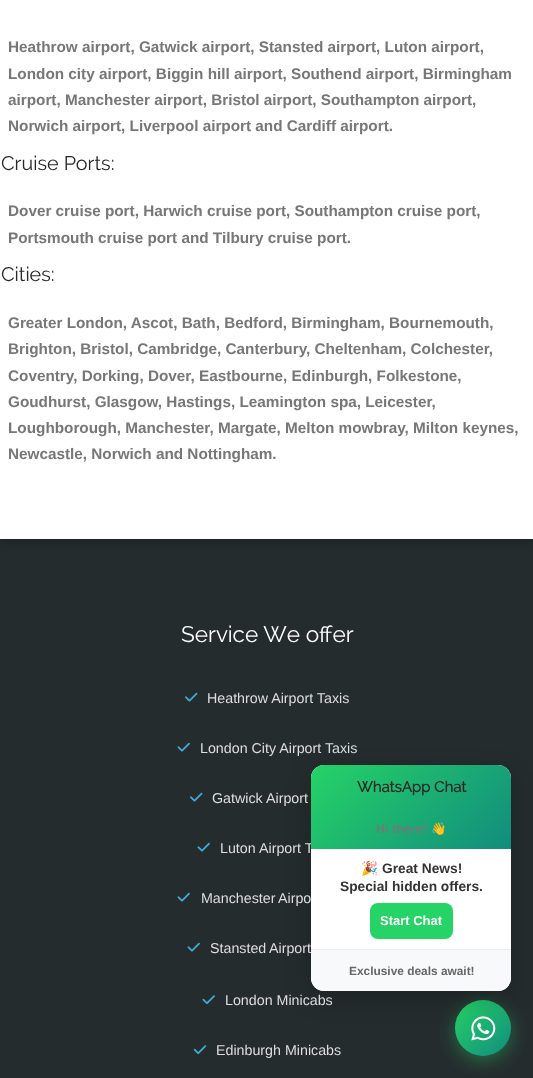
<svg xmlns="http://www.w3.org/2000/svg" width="533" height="1078">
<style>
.a{font:bold 15.3px Liberation Sans;fill:#777}
.b{font:19.75px Raleway;fill:#272727}
.c{font:22.5px Raleway;fill:#fff}
.d{font:14.25px Liberation Sans;fill:#ddd}
.e{font:bold 15px Raleway;fill:#272727}
.f{font:bold 12.5px Liberation Sans;fill:#6e7c77}
.g{font:bold 12.5px Noto Color Emoji;fill:#6e7c77}
.h{font:bold 13.75px Noto Color Emoji;fill:#333}
.i{font:bold 13.75px Liberation Sans;fill:#333}
.j{font:bold 13px Liberation Sans;fill:#fff}
.k{font:bold 11.9px Liberation Sans;fill:#666}
</style>
<defs>
<linearGradient id="g1" gradientUnits="userSpaceOnUse" x1="455" y1="1000" x2="511" y2="1056"><stop offset="0" stop-color="#25d366"/><stop offset="1" stop-color="#128c7e"/></linearGradient>
<linearGradient id="g2" gradientUnits="userSpaceOnUse" x1="340" y1="736" x2="482" y2="878"><stop offset="0" stop-color="#25d366"/><stop offset="1" stop-color="#128c7e"/></linearGradient>
</defs>
<rect width="100%" height="100%" fill="#252c2e"/>
<path fill="#0000004d" filter="blur(6px)" d="M0 -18h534v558H0z"/>
<path fill="#fff" d="M0 0h533v539H0z"/>
<image href="1.png" x="185" y="692" width="13" height="10"/>
<image href="2.png" x="177" y="742" width="13" height="10"/>
<image href="1.png" x="190" y="792" width="13" height="10"/>
<image href="2.png" x="197" y="842" width="13" height="10"/>
<image href="2.png" x="177" y="892" width="13" height="10"/>
<image href="2.png" x="187" y="942" width="13" height="10"/>
<image href="3.png" x="202" y="995" width="13" height="9"/>
<image href="4.png" x="193" y="1045" width="14" height="10"/>
<rect fill="#25d36666" filter="blur(9.5px)" x="455" y="1005" width="56" height="56" rx="28"/>
<circle fill="url(#g1)" cx="483" cy="1028" r="28"/>
<image href="5.png" x="471" y="1016" width="25" height="25"/>
<rect fill="#00000033" filter="blur(12.5px)" x="311" y="773" width="200" height="226" rx="13"/>
<text class="a" x="8" y="52">Heathrow airport, Gatwick airport, Stansted airport, Luton airport,</text>
<text class="a" x="8" y="79">London city airport, Biggin hill airport, Southend airport, Birmingham</text>
<text class="a" x="8" y="105">airport, Manchester airport, Bristol airport, Southampton airport,</text>
<text class="a" x="8" y="131">Norwich airport, Liverpool airport and Cardiff airport.</text>
<text class="b" x="1" y="170">Cruise Ports:</text>
<text class="a" x="8" y="216">Dover cruise port, Harwich cruise port, Southampton cruise port,</text>
<text class="a" x="8" y="243">Portsmouth cruise port and Tilbury cruise port.</text>
<text class="b" x="1" y="281">Cities:</text>
<text class="a" x="8" y="328">Greater London, Ascot, Bath, Bedford, Birmingham, Bournemouth,</text>
<text class="a" x="8" y="354">Brighton, Bristol, Cambridge, Canterbury, Cheltenham, Colchester,</text>
<text class="a" x="8" y="381">Coventry, Dorking, Dover, Eastbourne, Edinburgh, Folkestone,</text>
<text class="a" x="8" y="407">Goudhurst, Glasgow, Hastings, Leamington spa, Leicester,</text>
<text class="a" x="8" y="433">Loughborough, Manchester, Margate, Melton mowbray, Milton keynes,</text>
<text class="a" x="8" y="459">Newcastle, Norwich and Nottingham.</text>
<text class="c" x="181" y="642">Service We offer</text>
<text class="d" x="207" y="703">Heathrow Airport Taxis</text>
<text class="d" x="200" y="753">London City Airport Taxis</text>
<text class="d" x="212" y="803">Gatwick</text>
<text class="d" x="266" y="803">Airport</text>
<text class="d" x="220" y="853">Luton</text>
<text class="d" x="259" y="853">Airport T</text>
<text class="d" x="201" y="903">Manchester</text>
<text class="d" x="278" y="903">Airpo</text>
<text class="d" x="210" y="953">Stansted</text>
<text class="d" x="269" y="953">Airport</text>
<text class="d" x="225" y="1005">London Minicabs</text>
<text class="d" x="216" y="1055">Edinburgh Minicabs</text>
<rect fill="#fff" x="311" y="765" width="200" height="226" rx="13"/>
<path fill="url(#g2)" d="M324 765h174c7 0 13 6 13 13v71h-200v-71c0-7 6-13 13-13z"/>
<text class="e" x="357" y="792">WhatsApp Chat</text>
<text class="f" x="376" y="833">Hi there!</text>
<text class="g" x="431" y="833">👋</text>
<text class="h" x="361" y="873">🎉</text>
<text class="i" x="382" y="873">Great News!</text>
<text class="i" x="340" y="891">Special hidden offers.</text>
<rect fill="#25d366" x="370" y="903" width="83" height="36" rx="8"/>
<text class="j" x="380" y="925">Start Chat</text>
<path fill="#f8f9fa" d="M311 949h200v29c0 7-6 13-13 13h-174c-7 0-13-6-13-13z"/>
<path fill="#e9ecef" d="M311 949h200v1H311z"/>
<text class="k" x="349" y="975">Exclusive deals await!</text>
</svg>
